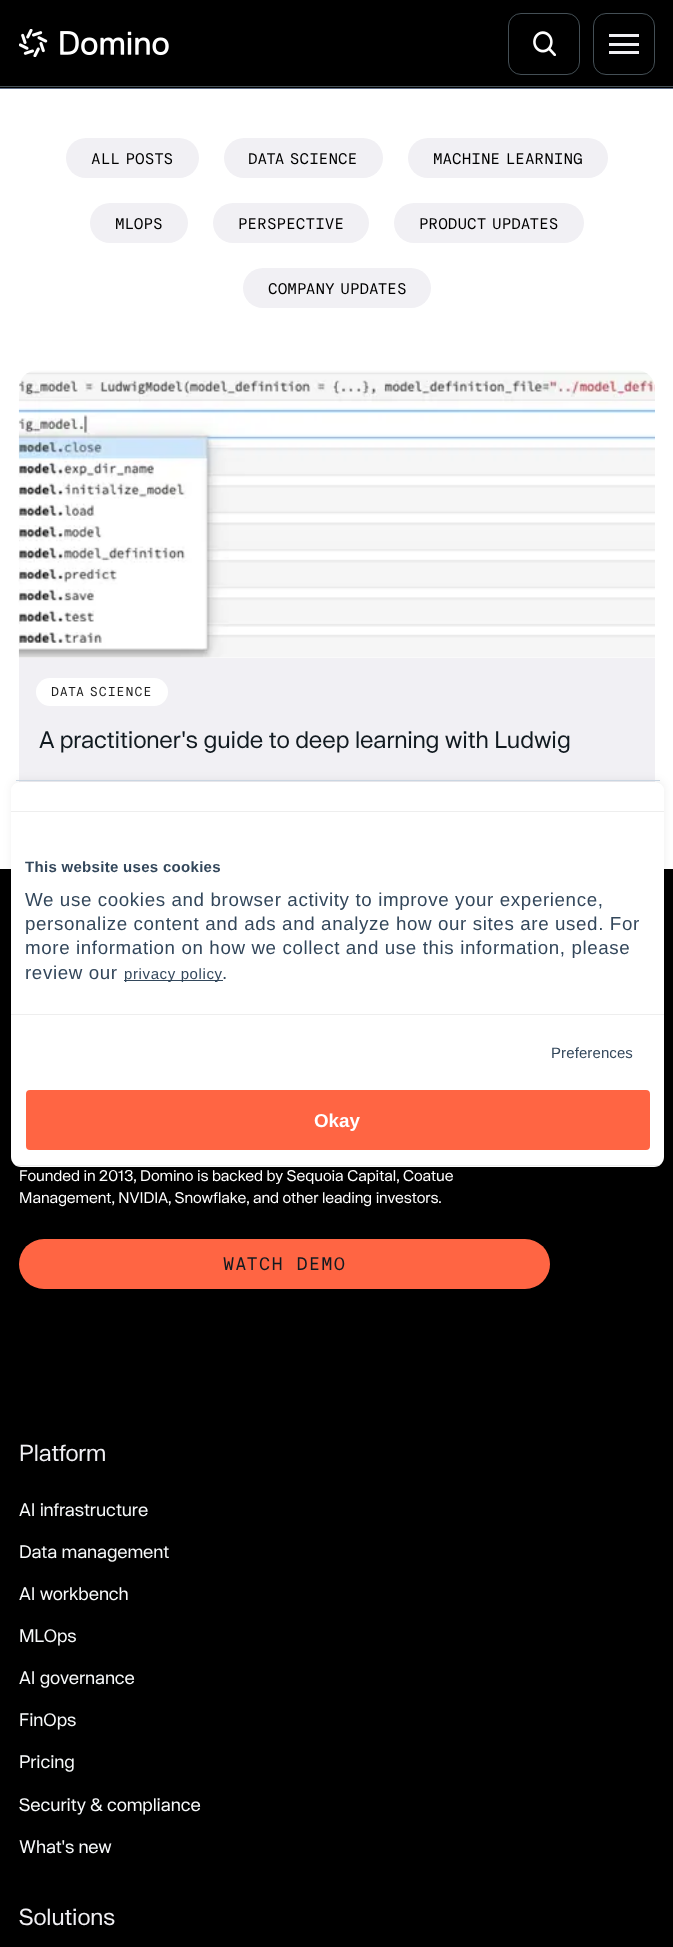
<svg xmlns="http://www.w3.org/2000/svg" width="673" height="1947">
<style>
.a{font:15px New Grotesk;fill:#000}
.b{font:12.5px New Grotesk;letter-spacing:0.9px;fill:#1e1e1e}
.c{font:23px 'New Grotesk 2';fill:#111a20}
.d{font:15px 'New Grotesk 2';fill:#fff}
.e{font:17.5px New Grotesk;letter-spacing:1.25px;fill:#111a20}
.f{font:22.5px 'New Grotesk 2';fill:#f1f0f4}
.g{font:17.5px 'New Grotesk 2';fill:#f8fafb}
.h{font:bold 15px Liberation Sans;letter-spacing:0.3px;fill:#33475b}
.i{font:18.75px Liberation Sans;letter-spacing:0.62px;fill:#33475b}
.j{font:15px Liberation Sans;letter-spacing:0.62px;fill:#33475b}
.k{font:15px Liberation Sans;letter-spacing:0.1px;fill:#33475b}
.l{font:bold 18.75px Liberation Sans;fill:#fff}
</style>
<rect width="100%" height="100%" fill="#fff"/>
<path fill="#000" d="M0 0h673v88H0z"/>
<path fill="#5e6d87" d="M0 88h673v1H0z"/>
<path fill="#444f55" d="M0 86h673v1H0z"/>
<image href="1.png" x="19" y="29" width="150" height="28"/>
<rect fill="none" stroke="#444f55" x="508.5" y="13.5" width="71" height="61" rx="12.5"/>
<image href="2.png" x="533" y="31" width="23" height="25"/>
<rect fill="none" stroke="#444f55" x="593.5" y="13.5" width="61" height="61" rx="12.5"/>
<path fill="#f1f0f4" d="M609 34h30v3H609z"/>
<path fill="#f1f0f4" d="M609 43h30v3H609z"/>
<path fill="#f1f0f4" d="M609 51h30v3H609z"/>
<rect fill="#f1f0f4" x="66" y="138" width="133" height="40" rx="20"/>
<rect fill="#f1f0f4" x="224" y="138" width="159" height="40" rx="20"/>
<rect fill="#f1f0f4" x="408" y="138" width="200" height="40" rx="20"/>
<rect fill="#f1f0f4" x="90" y="203" width="98" height="40" rx="20"/>
<rect fill="#f1f0f4" x="213" y="203" width="156" height="40" rx="20"/>
<rect fill="#f1f0f4" x="394" y="203" width="190" height="40" rx="20"/>
<rect fill="#f1f0f4" x="243" y="268" width="188" height="40" rx="20"/>
<image href="3.png" x="18" y="370" width="637" height="288"/>
<path fill="#f1f0f4" d="M19 658h636v125H19z"/>
<rect fill="#fff" x="36" y="678" width="132" height="28" rx="14"/>
<path fill="#000" d="M0 869h673v1078H0z"/>
<rect fill="#ff6543" x="19" y="1239" width="531" height="50" rx="25"/>
<rect fill="#0000000f" filter="blur(4px)" x="11" y="780" width="654" height="386" rx="10"/>
<path fill="#fff" d="M21 782h633c6 0 10 4 10 8v367c0 5-4 10-10 10h-633c-6 0-10-5-10-10v-367c0-4 4-8 10-8z"/>
<path fill="#cbd6e2" d="M16 780h644v1H16z"/>
<path fill="#eee" d="M11 811h653v1H11z"/>
<path fill="#eee" d="M11 1014h653v1H11z"/>
<path fill="#33475b" d="M124 980h99v1H124z"/>
<path fill="#eee" d="M17 1166l-2-1h645l-2 1z"/>
<rect fill="#ff6543" stroke="#ff6543" stroke-width="3" x="27.5" y="1091.5" width="621" height="57" rx="2.5"/>
<text class="a" x="91" y="164" word-spacing="-4">ALL POSTS</text>
<text class="a" x="248" y="164" word-spacing="-4">DATA SCIENCE</text>
<text class="a" x="433" y="164" word-spacing="-4">MACHINE LEARNING</text>
<text class="a" x="115" y="229">MLOPS</text>
<text class="a" x="238" y="229">PERSPECTIVE</text>
<text class="a" x="419" y="229" word-spacing="-4">PRODUCT UPDATES</text>
<text class="a" x="268" y="294" word-spacing="-4">COMPANY UPDATES</text>
<text class="b" x="51" y="696" word-spacing="-4">DATA SCIENCE</text>
<text class="c" x="39" y="748">A practitioner's guide to deep learning with Ludwig</text>
<text class="d" x="19" y="1181">Founded in 2013, Domino is backed by Sequoia Capital, Coatue</text>
<text class="d" x="19" y="1203">Management, NVIDIA, Snowflake, and other leading investors.</text>
<text class="e" x="223" y="1270">WATCH DEMO</text>
<text class="f" x="19" y="1461">Platform</text>
<text class="g" x="19" y="1516">AI infrastructure</text>
<text class="g" x="19" y="1558">Data management</text>
<text class="g" x="19" y="1600">AI workbench</text>
<text class="g" x="19" y="1642">MLOps</text>
<text class="g" x="19" y="1684">AI governance</text>
<text class="g" x="19" y="1726">FinOps</text>
<text class="g" x="19" y="1768">Pricing</text>
<text class="g" x="19" y="1811">Security &amp; compliance</text>
<text class="g" x="19" y="1853">What's new</text>
<text class="f" x="19" y="1925">Solutions</text>
<text class="h" x="25" y="872">This website uses cookies</text>
<text class="i" x="25" y="906">We use cookies and browser activity to improve your experience,</text>
<text class="i" x="25" y="930">personalize content and ads and analyze how our sites are used. For</text>
<text class="i" x="25" y="954">more information on how we collect and use this information, please</text>
<text class="i" x="25" y="979">review our</text>
<text class="j" x="124" y="979">privacy policy</text>
<text class="i" x="222" y="979">.</text>
<text class="k" x="551" y="1058">Preferences</text>
<text class="l" x="314" y="1127">Okay</text>
</svg>
